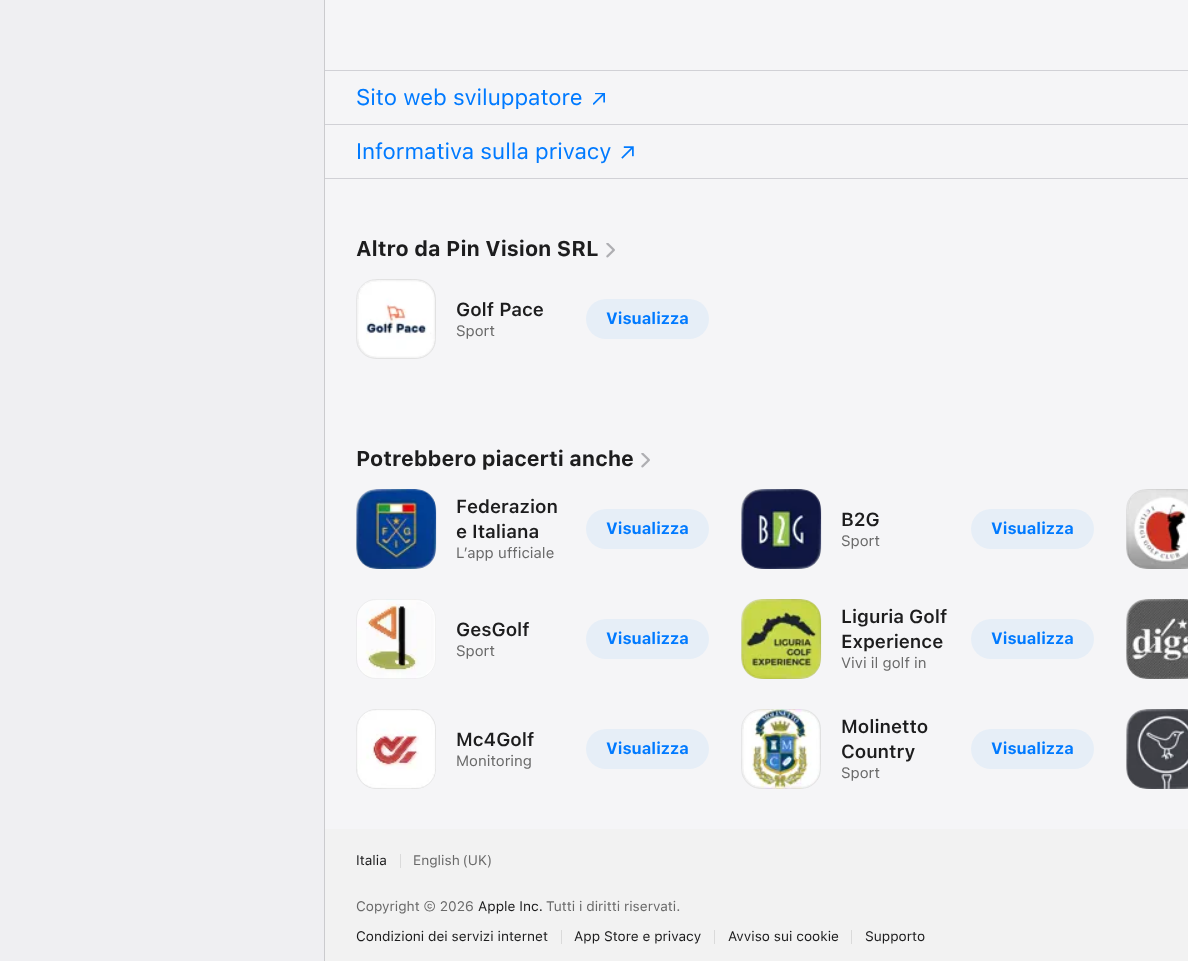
<svg xmlns="http://www.w3.org/2000/svg" width="1188" height="961">
<style>
.a{font:22.5px SF;fill:#007aff}
.b{font:bold 21.25px SF;fill:#1d1d1e}
.c{font:600 18.75px SF;fill:#1d1d1e}
.d{font:15px 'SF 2';fill:#6a6a6a}
.e{font:bold 16.25px SF;fill:#007aff}
.f{font:13.75px 'SF 2';fill:#1d1d1e}
.g{font:13.75px 'SF 2';fill:#6a6a6a}
</style>
<rect width="100%" height="100%" fill="#f5f5f7"/>
<path fill="#efeff2" d="M0 0h324v961H0z"/>
<path fill="#cbcbce" d="M324 0h1v961H324z"/>
<path fill="#d1d1d6" d="M325 70h863v1H325z"/>
<path fill="#d1d1d6" d="M325 124h863v1H325z"/>
<image href="1.png" x="593" y="93" width="12" height="12"/>
<path fill="#d1d1d6" d="M325 178h863v1H325z"/>
<image href="2.png" x="621" y="146" width="13" height="13"/>
<image href="3.png" x="606" y="243" width="9" height="15"/>
<image href="4.png" x="356" y="279" width="80" height="80"/>
<rect fill="none" stroke="#8080801a" x="356.5" y="279.5" width="79" height="79" rx="19.5"/>
<rect fill="#e6eef7" x="586" y="299" width="123" height="40" rx="20"/>
<image href="3.png" x="641" y="453" width="9" height="15"/>
<image href="5.png" x="356" y="489" width="81" height="80"/>
<rect fill="none" stroke="#8080801a" x="356.5" y="489.5" width="79" height="79" rx="19.5"/>
<rect fill="#e6eef7" x="586" y="509" width="123" height="40" rx="20"/>
<image href="6.png" x="741" y="489" width="81" height="80"/>
<rect fill="none" stroke="#8080801a" x="741.5" y="489.5" width="79" height="79" rx="19.5"/>
<rect fill="#e6eef7" x="971" y="509" width="123" height="40" rx="20"/>
<image href="7.png" x="1126" y="489" width="62" height="80"/>
<rect fill="none" stroke="#8080801a" x="1126.5" y="489.5" width="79" height="79" rx="19.5"/>
<image href="8.png" x="356" y="599" width="80" height="80"/>
<rect fill="none" stroke="#8080801a" x="356.5" y="599.5" width="79" height="79" rx="19.5"/>
<rect fill="#e6eef7" x="586" y="619" width="123" height="40" rx="20"/>
<image href="9.png" x="741" y="599" width="81" height="80"/>
<rect fill="none" stroke="#8080801a" x="741.5" y="599.5" width="79" height="79" rx="19.5"/>
<rect fill="#e6eef7" x="971" y="619" width="123" height="40" rx="20"/>
<image href="10.png" x="1126" y="599" width="62" height="80"/>
<rect fill="none" stroke="#8080801a" x="1126.5" y="599.5" width="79" height="79" rx="19.5"/>
<image href="11.png" x="356" y="709" width="80" height="80"/>
<rect fill="none" stroke="#8080801a" x="356.5" y="709.5" width="79" height="79" rx="19.5"/>
<rect fill="#e6eef7" x="586" y="729" width="123" height="40" rx="20"/>
<image href="12.png" x="741" y="709" width="80" height="80"/>
<rect fill="none" stroke="#8080801a" x="741.5" y="709.5" width="79" height="79" rx="19.5"/>
<rect fill="#e6eef7" x="971" y="729" width="123" height="40" rx="20"/>
<image href="13.png" x="1126" y="709" width="62" height="80"/>
<rect fill="none" stroke="#8080801a" x="1126.5" y="709.5" width="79" height="79" rx="19.5"/>
<path fill="#f2f2f2" d="M325 829h863v132H325z"/>
<path fill="#dadada" d="M400 854h1v14H400z"/>
<path fill="#dadada" d="M561 930h1v14H561z"/>
<path fill="#dadada" d="M714 930h1v14H714z"/>
<path fill="#dadada" d="M851 930h1v14H851z"/>
<text class="a" x="356" y="105">Sito web sviluppatore</text>
<text class="a" x="356" y="159">Informativa sulla privacy</text>
<text class="b" x="356" y="256">Altro da Pin Vision SRL</text>
<text class="c" x="456" y="316">Golf Pace</text>
<text class="d" x="456" y="336">Sport</text>
<text class="e" x="606" y="324">Visualizza</text>
<text class="b" x="356" y="466">Potrebbero piacerti anche</text>
<text class="c" x="456" y="513">Federazion</text>
<text class="c" x="456" y="538">e Italiana</text>
<text class="d" x="456" y="558">L’app ufficiale</text>
<text class="e" x="606" y="534">Visualizza</text>
<text class="c" x="841" y="526">B2G</text>
<text class="d" x="841" y="546">Sport</text>
<text class="e" x="991" y="534">Visualizza</text>
<text class="c" x="456" y="636">GesGolf</text>
<text class="d" x="456" y="656">Sport</text>
<text class="e" x="606" y="644">Visualizza</text>
<text class="c" x="841" y="623">Liguria Golf</text>
<text class="c" x="841" y="648">Experience</text>
<text class="d" x="841" y="668">Vivi il golf in</text>
<text class="e" x="991" y="644">Visualizza</text>
<text class="c" x="456" y="746">Mc4Golf</text>
<text class="d" x="456" y="766">Monitoring</text>
<text class="e" x="606" y="754">Visualizza</text>
<text class="c" x="841" y="733">Molinetto</text>
<text class="c" x="841" y="758">Country</text>
<text class="d" x="841" y="778">Sport</text>
<text class="e" x="991" y="754">Visualizza</text>
<text class="f" x="356" y="865">Italia</text>
<text class="g" x="413" y="865" word-spacing="-1">English (UK)</text>
<text class="g" x="356" y="911">Copyright © 2026</text>
<text class="f" x="478" y="911">Apple Inc.</text>
<text class="g" x="546" y="911">Tutti i diritti riservati.</text>
<text class="f" x="356" y="941">Condizioni dei servizi internet</text>
<text class="f" x="574" y="941">App Store e privacy</text>
<text class="f" x="728" y="941">Avviso sui cookie</text>
<text class="f" x="865" y="941">Supporto</text>
</svg>
